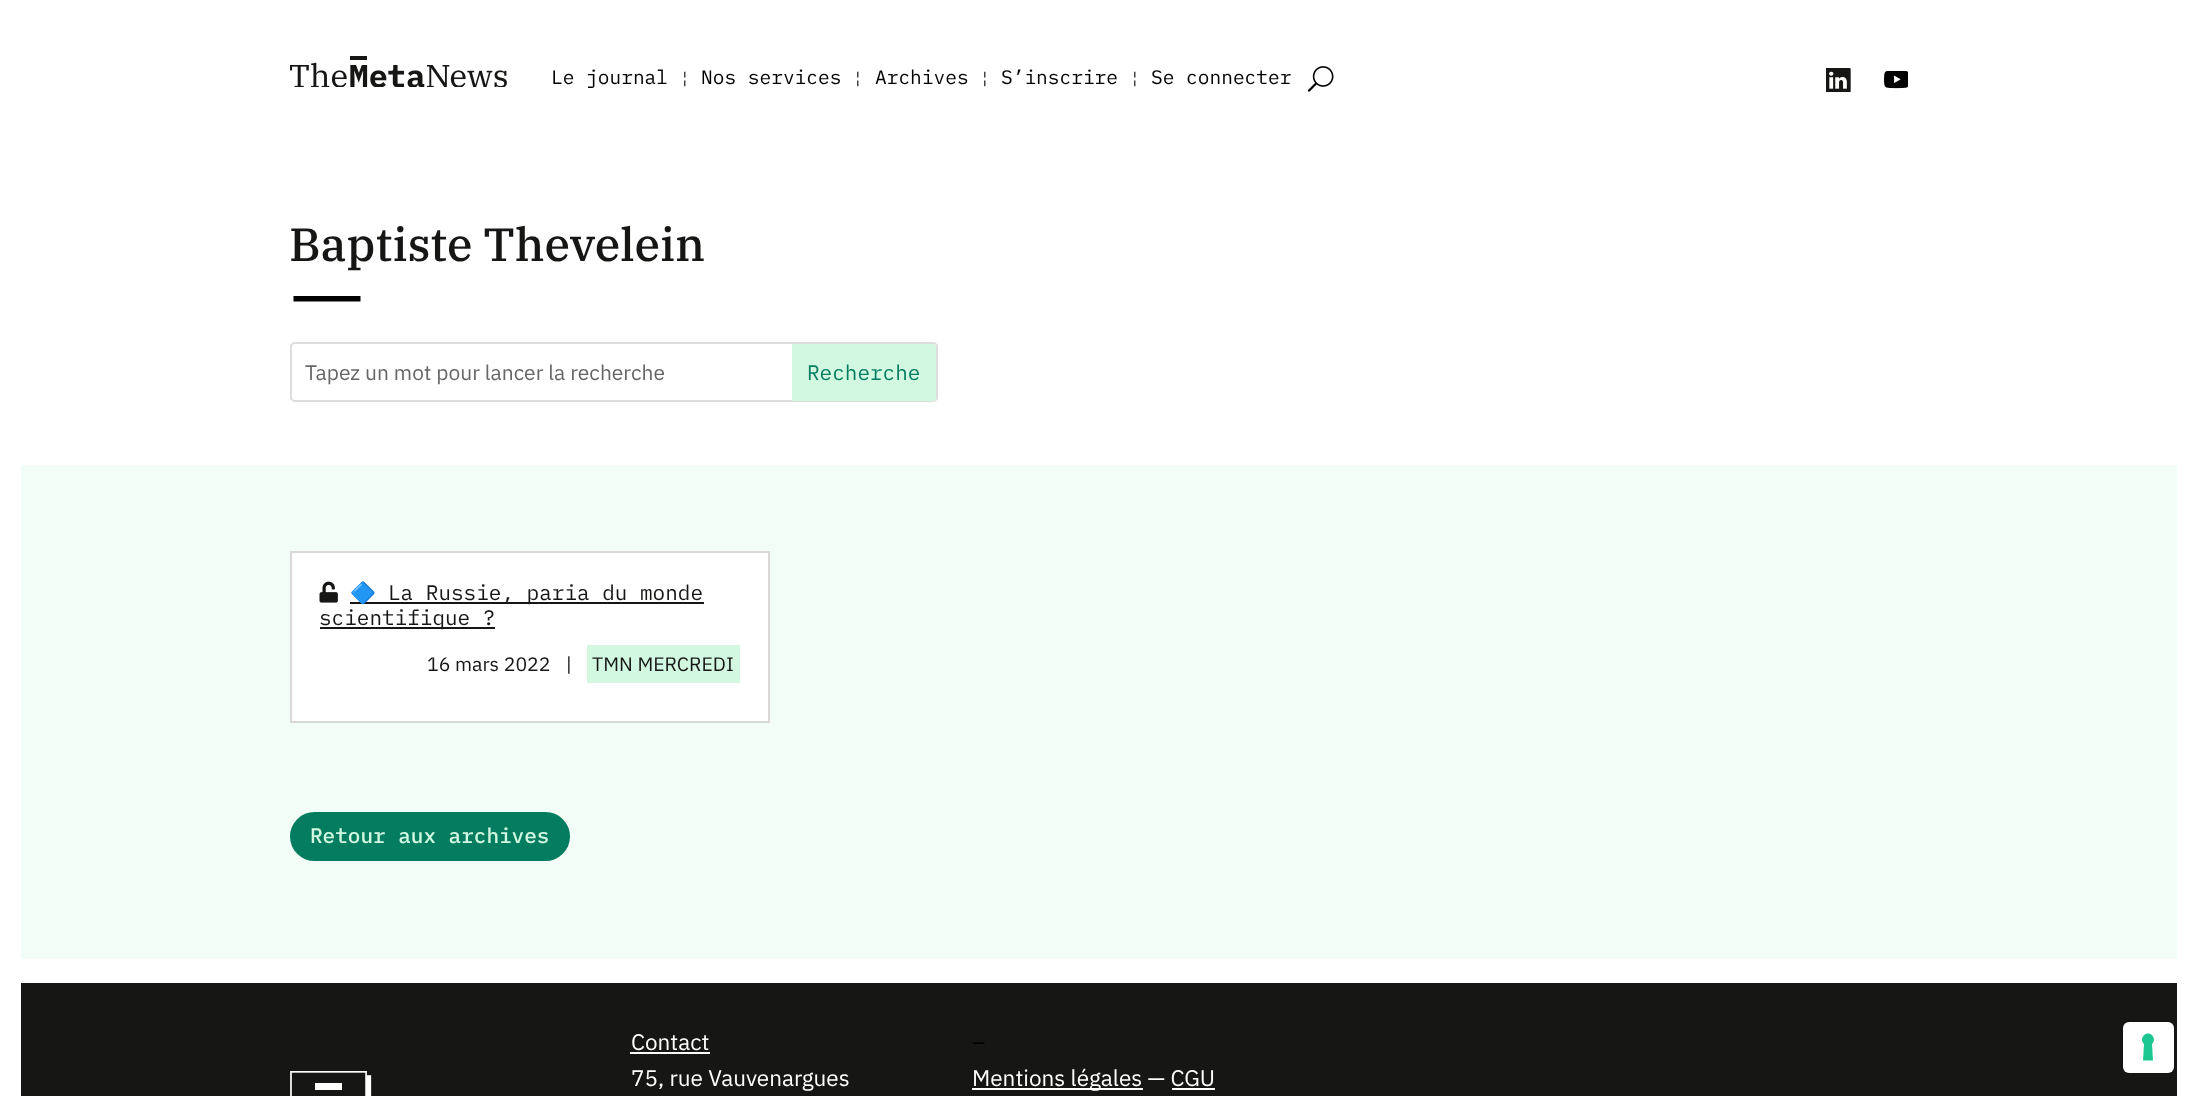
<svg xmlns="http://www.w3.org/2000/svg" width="2197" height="1096">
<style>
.a{font:19.5px IBM Plex Mono;fill:#000}
.b{font:16px IBM Plex Mono;fill:#000}
.c{font:500 46.5px IBM Plex Serif;fill:#161615}
.d{font:21px IBM Plex Sans;fill:#666}
.e{font:21px IBM Plex Mono;fill:#037c60}
.f{font:21px Noto Color Emoji;fill:#161615}
.g{font:21px IBM Plex Mono;fill:#161615}
.h{font:19.5px IBM Plex Sans;fill:#161615}
.i{font:19.5px IBM Plex Mono;fill:#161615}
.j{font:500 21px IBM Plex Mono;fill:#d2f8e1}
.k{font:22.5px IBM Plex Sans;fill:#fff}
.l{font:22.5px IBM Plex Sans;fill:#000}
</style>
<defs>
<clipPath id="clip1"><path d="M290 296h73v6H290z"/></clipPath>
</defs>
<rect width="100%" height="100%" fill="#fff"/>
<image href="1.png" x="290" y="56" width="217" height="31"/>
<image href="2.png" x="1307" y="66" width="27" height="26"/>
<image href="3.png" x="1826" y="68" width="25" height="24"/>
<image href="4.png" x="1884" y="71" width="24" height="18"/>
<g clip-path="url(#clip1)">
<path fill="none" stroke="#000" stroke-width="6" d="M293.5 298.5h67"/>
</g>
<rect fill="none" stroke="#ddd" stroke-width="2" x="291" y="343" width="646" height="58" rx="4"/>
<path fill="#d2f8e1" d="M792 344h141c1.5 0 3 1.5 3 3v51c0 1.5-1.5 3-3 3h-141z"/>
<path fill="#f1fdf6" d="M21 465h2156v494H21z"/>
<path fill="#fff" stroke="#d8d8d8" stroke-width="2" d="M291 552h478v170H291z"/>
<image href="5.png" x="319" y="581" width="19" height="22"/>
<path fill="#161615" d="M350 602h354v2H350z"/>
<path fill="#161615" d="M320 627h175v2H320z"/>
<path fill="#d2f8e1" d="M587 645h153v38H587z"/>
<rect fill="#037c60" x="290" y="812" width="280" height="49" rx="24.5"/>
<path fill="#161615" d="M21 983h2156v113H21z"/>
<image href="6.png" x="290" y="1071" width="82" height="25"/>
<path fill="#fff" d="M630 1052h80v2H630z"/>
<path fill="#fff" d="M972 1088h171v2H972z"/>
<path fill="#fff" d="M1172 1088h43v2H1172z"/>
<rect fill="none" stroke="#131312" stroke-width="2" x="2122" y="1021" width="52" height="52" rx="7"/>
<rect fill="#fff" x="2123" y="1022" width="51" height="51" rx="6"/>
<path fill="#1cc691" fill-rule="evenodd" d="M2148 1033.5c5.5 0 8 7 4 10.5l1 16.5h-10l1-16.5c-4-3.5-1.5-10.5 4-10.5z"/>
<text class="a" x="551" y="84">Le journal</text>
<text class="b" x="680" y="84">¦</text>
<text class="a" x="701" y="84">Nos services</text>
<text class="b" x="853" y="84">¦</text>
<text class="a" x="875" y="84">Archives</text>
<text class="b" x="980" y="84">¦</text>
<text class="a" x="1001" y="84">S’inscrire</text>
<text class="b" x="1130" y="84">¦</text>
<text class="a" x="1151" y="84">Se connecter</text>
<text class="c" x="289" y="261">Baptiste Thevelein</text>
<text class="d" x="305" y="380">Tapez un mot pour lancer la recherche</text>
<text class="e" x="807" y="380">Recherche</text>
<text class="f" x="350" y="600">🔷</text>
<text class="g" x="388" y="600">La Russie, paria du monde</text>
<text class="g" x="319" y="625">scientifique ?</text>
<text class="h" x="427" y="671">16 mars 2022</text>
<text class="i" x="563" y="671">|</text>
<text class="h" x="592" y="671">TMN MERCREDI</text>
<text class="j" x="310" y="843">Retour aux archives</text>
<text class="k" x="631" y="1050">Contact</text>
<text class="k" x="631" y="1086">75, rue Vauvenargues</text>
<text class="l" x="972" y="1050">–</text>
<text class="k" x="972" y="1086">Mentions légales — CGU</text>
</svg>
